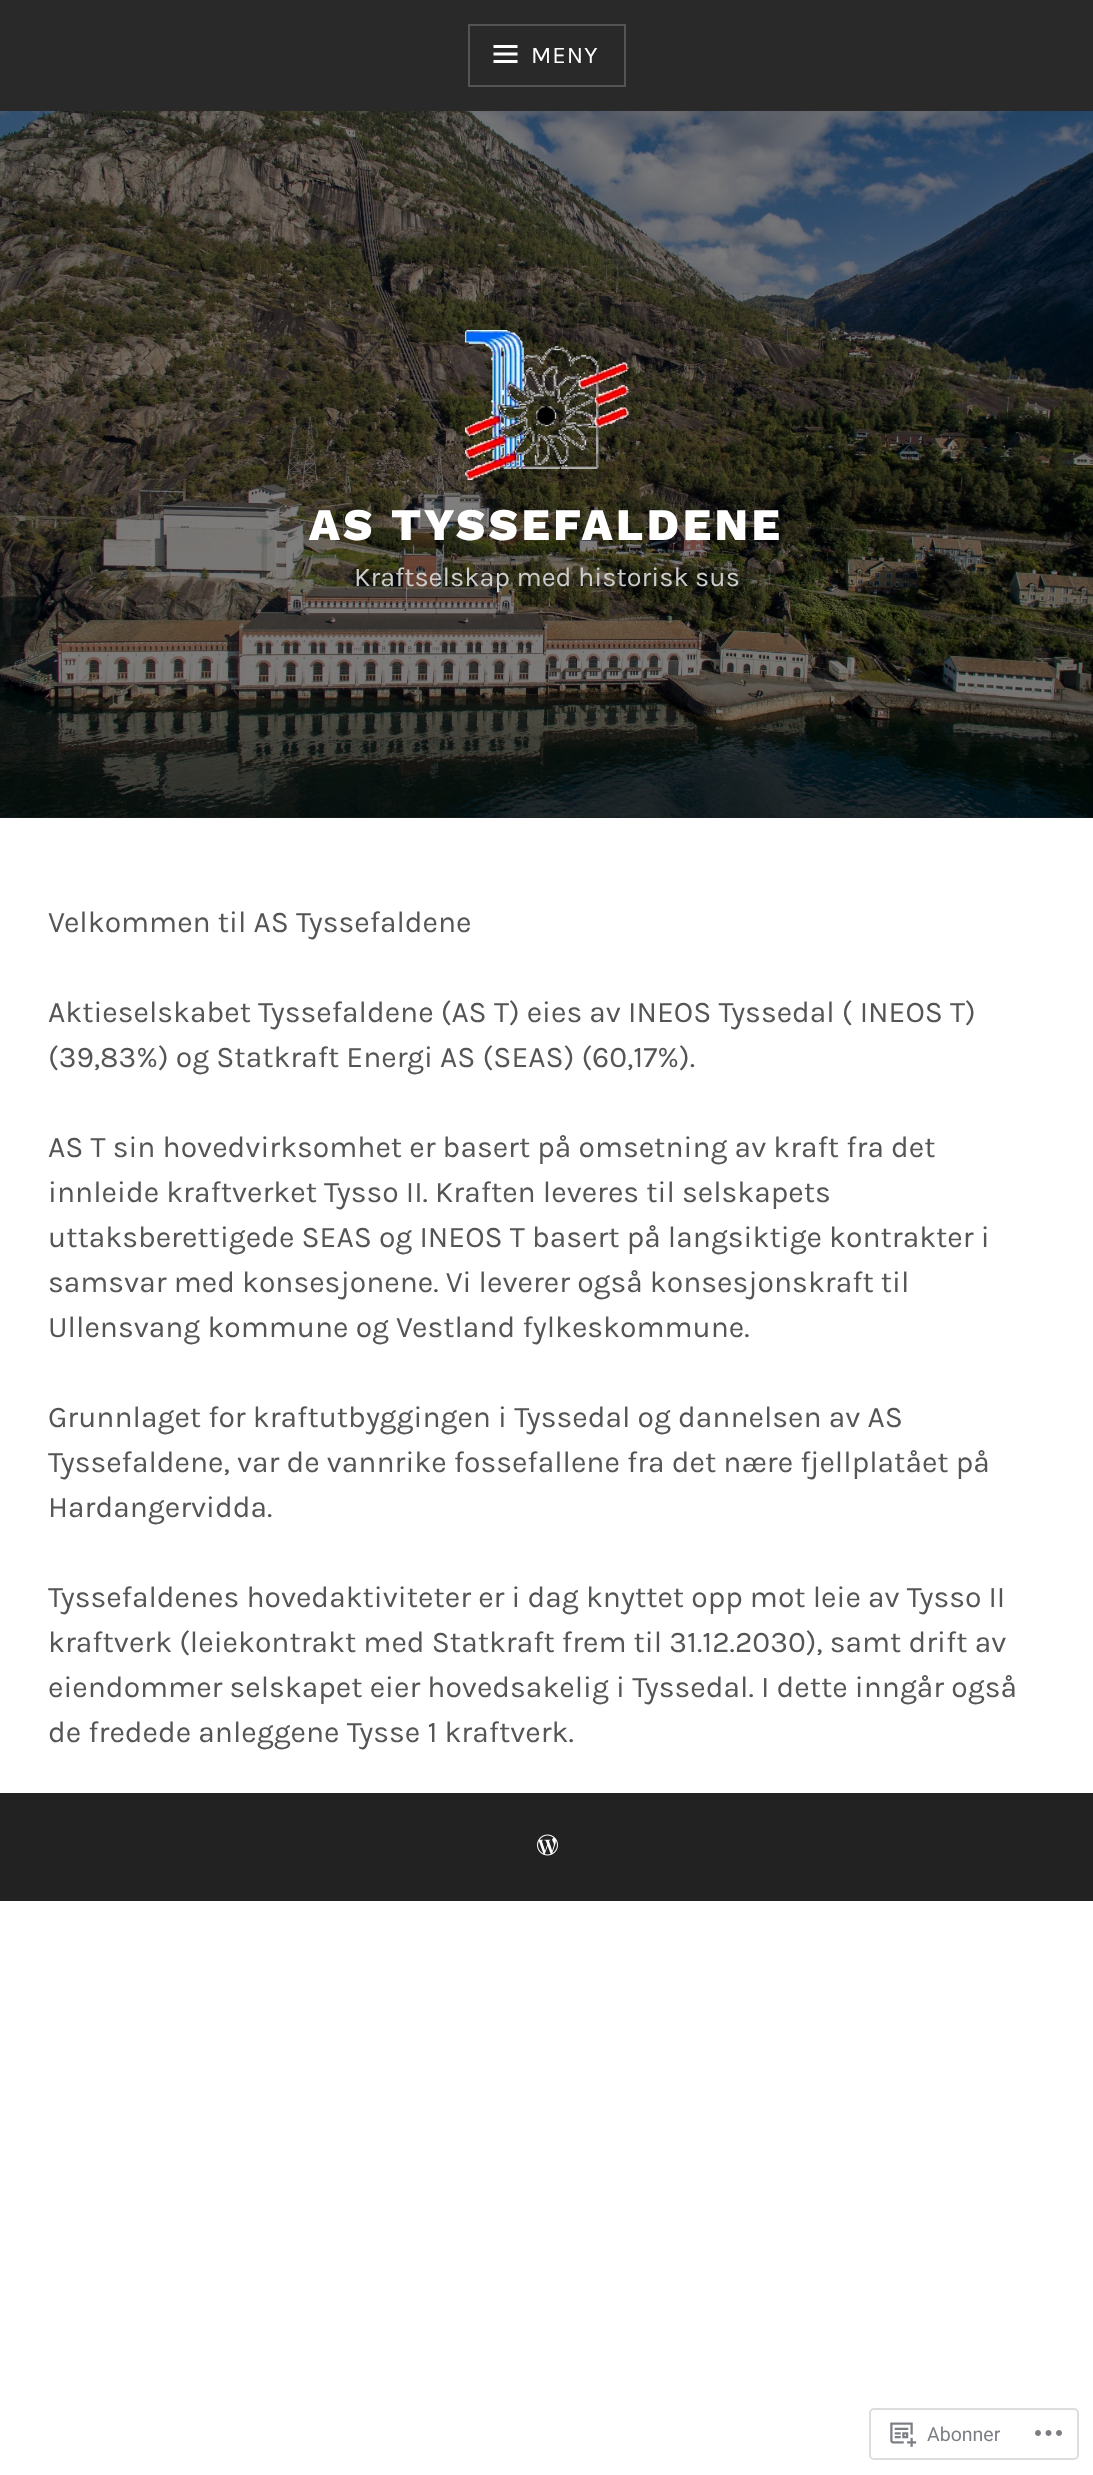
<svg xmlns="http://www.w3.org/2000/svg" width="1093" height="2475">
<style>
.a{font:24px Karla;letter-spacing:1px;fill:#fff}
.b{font:800 45px Work Sans;letter-spacing:3.6px;fill:#fff}
.c{font:27px Karla;fill:#ccc}
.d{font:30px Karla;fill:#555}
.e{font:19.5px Roboto;fill:#7b7f85}
</style>
<rect width="100%" height="100%" fill="#fff"/>
<path fill="#1a1a1a" d="M0 817h1093v1H0z"/>
<path fill="#29292a" d="M0 0h1093v111H0z"/>
<path fill="none" stroke="#545455" stroke-width="2" d="M469 25h156v61H469z"/>
<image href="1.png" x="493" y="45" width="25" height="18"/>
<image href="2.png" x="0" y="111" width="1093" height="707"/>
<image href="3.png" x="465" y="330" width="164" height="150"/>
<path fill="#222" d="M0 1793h1093v108H0z"/>
<image href="4.png" x="537" y="1834" width="21" height="22"/>
<rect fill="none" stroke="#dddddf" stroke-width="2" x="870" y="2409" width="208" height="50" rx="4"/>
<image href="5.png" x="890" y="2422" width="27" height="25"/>
<image href="6.png" x="1035" y="2430" width="27" height="6"/>
<text class="a" x="531" y="63">MENY</text>
<text class="b" x="309" y="540">AS TYSSEFALDENE</text>
<text class="c" x="354" y="586">Kraftselskap med historisk sus</text>
<text class="d" x="48" y="932">Velkommen til AS Tyssefaldene</text>
<text class="d" x="48" y="1022">Aktieselskabet Tyssefaldene (AS T) eies av INEOS Tyssedal ( INEOS T)</text>
<text class="d" x="48" y="1067">(39,83%) og Statkraft Energi AS (SEAS) (60,17%).</text>
<text class="d" x="48" y="1157">AS T sin hovedvirksomhet er basert på omsetning av kraft fra det</text>
<text class="d" x="48" y="1202">innleide kraftverket Tysso II. Kraften leveres til selskapets</text>
<text class="d" x="48" y="1247">uttaksberettigede SEAS og INEOS T basert på langsiktige kontrakter i</text>
<text class="d" x="48" y="1292">samsvar med konsesjonene. Vi leverer også konsesjonskraft til</text>
<text class="d" x="48" y="1337">Ullensvang kommune og Vestland fylkeskommune.</text>
<text class="d" x="48" y="1427">Grunnlaget for kraftutbyggingen i Tyssedal og dannelsen av AS</text>
<text class="d" x="48" y="1472">Tyssefaldene, var de vannrike fossefallene fra det nære fjellplatået på</text>
<text class="d" x="48" y="1517">Hardangervidda.</text>
<text class="d" x="48" y="1607">Tyssefaldenes hovedaktiviteter er i dag knyttet opp mot leie av Tysso II</text>
<text class="d" x="48" y="1652">kraftverk (leiekontrakt med Statkraft frem til 31.12.2030), samt drift av</text>
<text class="d" x="48" y="1697">eiendommer selskapet eier hovedsakelig i Tyssedal. I dette inngår også</text>
<text class="d" x="48" y="1742">de fredede anleggene Tysse 1 kraftverk.</text>
<text class="e" x="927" y="2441">Abonner</text>
</svg>
